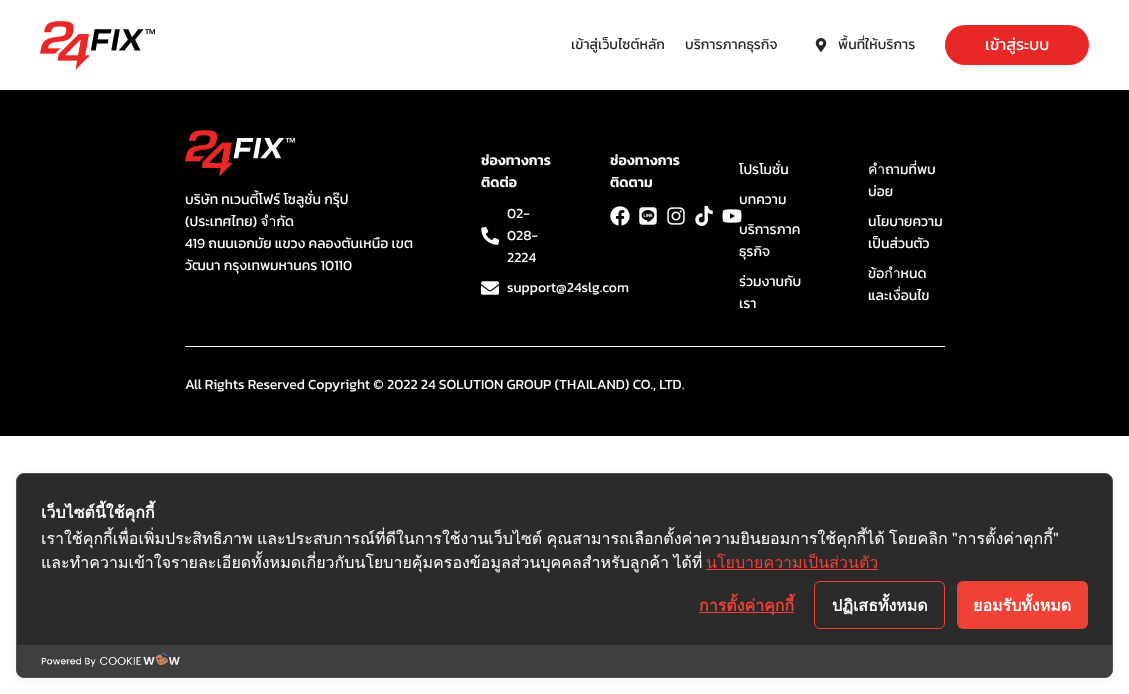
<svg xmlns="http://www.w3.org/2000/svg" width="1129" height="694">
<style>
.a{font:14px Kanit;fill:#262626}
.b{font:16px Kanit;fill:#fff}
.c{font:14px Kanit;fill:#fff}
.d{font:600 14px Kanit;fill:#fff}
.e{font:bold 16px Loma;fill:#fff}
.f{font:16px Loma;fill:#fff}
.g{font:16px Loma;fill:#ef4136}
.h{font:bold 16px Loma;fill:#ef4136}
</style>
<rect width="100%" height="100%" fill="#fff"/>
<image href="1.png" x="40" y="21" width="115" height="49"/>
<image href="2.png" x="815" y="38" width="12" height="14"/>
<path fill="#f4f4f4" d="M945 46v1c0 11 9 20 20 20h104c11 0 20-9 20-20v-1c-1 11-9 19-20 19h-104c-11 0-19-8-20-19z"/>
<rect fill="#e82727" x="945" y="25" width="144" height="40" rx="20"/>
<path fill="#000" d="M0 90h1129v346H0z"/>
<image href="3.png" x="185" y="130" width="110" height="47"/>
<image href="4.png" x="481" y="227" width="18" height="18"/>
<image href="5.png" x="481" y="281" width="18" height="14"/>
<image href="6.png" x="610" y="206" width="20" height="20"/>
<image href="7.png" x="639" y="207" width="18" height="18"/>
<image href="8.png" x="667" y="207" width="18" height="18"/>
<image href="9.png" x="695" y="206" width="18" height="20"/>
<image href="10.png" x="722" y="209" width="20" height="14"/>
<path fill="#fff" d="M185 346h760v1H185z"/>
<rect fill="#0000000d" filter="blur(4px)" x="16" y="475" width="1097" height="205" rx="8"/>
<rect fill="#2b2b2b" stroke="#505050" x="16.5" y="473.5" width="1096" height="204" rx="7.5"/>
<path fill="#ef4136" d="M706 569h172v1H706z"/>
<path fill="#ef4136" d="M699 612h95v1H699z"/>
<rect fill="none" stroke="#ef4136" x="814.5" y="581.5" width="130" height="47" rx="5.5"/>
<rect fill="#ef4136" x="957" y="581" width="131" height="48" rx="6"/>
<path fill="#3f3f3f" d="M17 645h1095v24c0 4.5-3.5 8-8 8h-1079c-4.5 0-8-3.5-8-8z"/>
<image href="11.png" x="41" y="652" width="139" height="15"/>
<text class="a" x="571" y="49">เข้าสู่เว็บไซต์หลัก</text>
<text class="a" x="685" y="49">บริการภาคธุรกิจ</text>
<text class="a" x="838" y="49">พื้นที่ให้บริการ</text>
<text class="b" x="985" y="50">เข้าสู่ระบบ</text>
<text class="c" x="185" y="204">บริษัท ทเวนตี้โฟร์ โซลูชั่น กรุ๊ป</text>
<text class="c" x="185" y="226">(ประเทศไทย) จำกัด</text>
<text class="c" x="185" y="248">419 ถนนเอกมัย แขวง คลองตันเหนือ เขต</text>
<text class="c" x="185" y="270">วัฒนา กรุงเทพมหานคร 10110</text>
<text class="d" x="481" y="165">ช่องทางการ</text>
<text class="d" x="481" y="187">ติดต่อ</text>
<text class="c" x="507" y="218">02-</text>
<text class="c" x="507" y="240">028-</text>
<text class="c" x="507" y="262">2224</text>
<text class="c" x="507" y="292">support@24slg.com</text>
<text class="d" x="610" y="165">ช่องทางการ</text>
<text class="d" x="610" y="187">ติดตาม</text>
<text class="c" x="739" y="174">โปรโมชั่น</text>
<text class="c" x="739" y="204">บทความ</text>
<text class="c" x="739" y="234">บริการภาค</text>
<text class="c" x="739" y="256">ธุรกิจ</text>
<text class="c" x="739" y="286">ร่วมงานกับ</text>
<text class="c" x="739" y="308">เรา</text>
<text class="c" x="868" y="174">คำถามที่พบ</text>
<text class="c" x="868" y="196">บ่อย</text>
<text class="c" x="868" y="226">นโยบายความ</text>
<text class="c" x="868" y="248">เป็นส่วนตัว</text>
<text class="c" x="868" y="278">ข้อกำหนด</text>
<text class="c" x="868" y="300">และเงื่อนไข</text>
<text class="c" x="185" y="389">All Rights Reserved Copyright © 2022 24 SOLUTION GROUP (THAILAND) CO., LTD.</text>
<text class="e" x="41" y="518">เว็บไซต์นี้ใช้คุกกี้</text>
<text class="f" x="41" y="544" word-spacing="-1">เราใช้คุกกี้เพื่อเพิ่มประสิทธิภาพ และประสบการณ์ที่ดีในการใช้งานเว็บไซต์ คุณสามารถเลือกตั้งค่าความยินยอมการใช้คุกกี้ได้ โดยคลิก "การตั้งค่าคุกกี้"</text>
<text class="f" x="41" y="568" word-spacing="-1">และทำความเข้าใจรายละเอียดทั้งหมดเกี่ยวกับนโยบายคุ้มครองข้อมูลส่วนบุคคลสำหรับลูกค้า ได้ที่</text>
<text class="g" x="706" y="568">นโยบายความเป็นส่วนตัว</text>
<text class="h" x="699" y="611">การตั้งค่าคุกกี้</text>
<text class="e" x="832" y="611">ปฏิเสธทั้งหมด</text>
<text class="e" x="973" y="611">ยอมรับทั้งหมด</text>
</svg>
